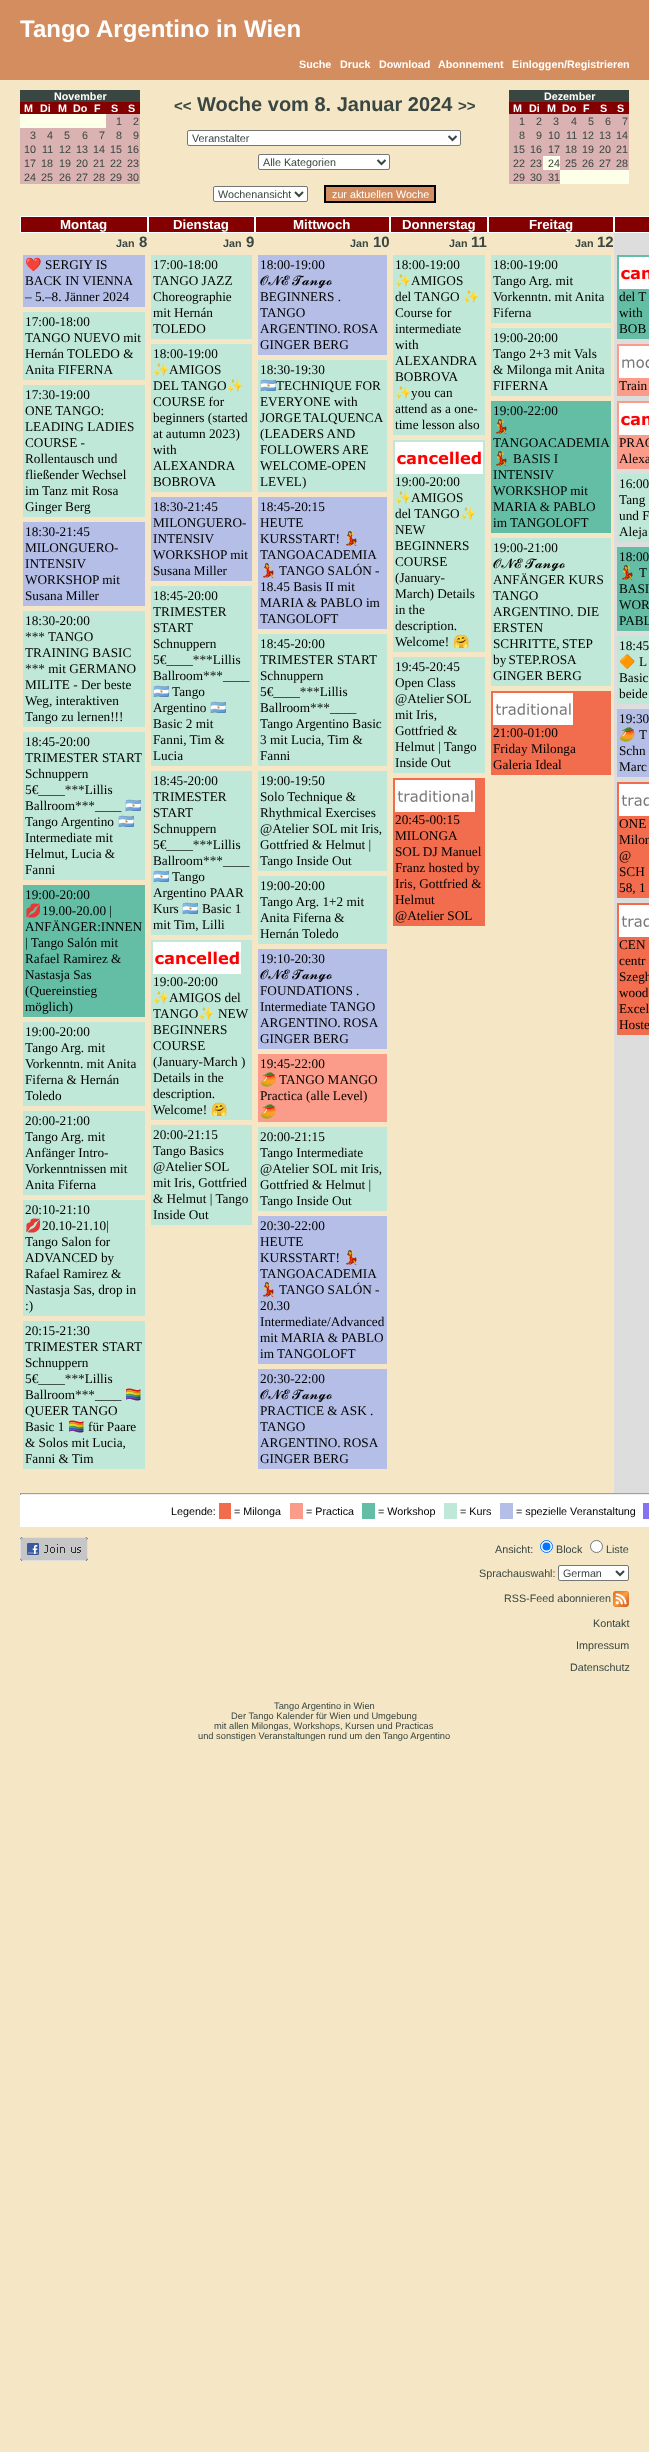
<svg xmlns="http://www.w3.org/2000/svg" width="649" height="2452">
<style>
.a{font:bold 24px Liberation Sans;fill:#fff}
.b{font:bold 10.75px Liberation Sans;fill:#fff}
.c{font:10.75px Liberation Sans;fill:#394641}
.d{font:bold 15px Liberation Sans;fill:#394641}
.e{font:bold 20px Liberation Sans;fill:#394641}
.f{font:10.75px Liberation Sans;fill:#fff}
.g{font:bold 13.25px Liberation Sans;fill:#fff}
.h{font:bold 10.75px Liberation Sans;fill:#394641}
.i{font:13.25px Noto Color Emoji;fill:#000}
.j{font:13.25px Liberation Serif;fill:#000}
.k{font:13.25px FreeSerif;fill:#000}
.l{font:10.75px Liberation Sans;fill:#000}
.m{font:9.3px Liberation Sans;fill:#394641}
</style>
<rect width="100%" height="100%" fill="#f5e7c6"/>
<path fill="#d38d5f" d="M0 0h649v80H0z"/>
<path fill="#394641" d="M20 90h120v12H20z"/>
<path fill="#840000" d="M20 102h120v12H20z"/>
<path fill="#fdffe8" d="M20 114h86v14H20z"/>
<path fill="#dab2b2" d="M106 114h34v14H106z"/>
<path fill="#dab2b2" d="M20 128h120v14H20z"/>
<path fill="#dab2b2" d="M20 142h120v14H20z"/>
<path fill="#dab2b2" d="M20 156h120v14H20z"/>
<path fill="#dab2b2" d="M20 170h120v14H20z"/>
<rect fill="#fff" stroke="#767676" x="187.5" y="130.5" width="273" height="15" rx="1.5"/>
<path fill="none" stroke="#394641" stroke-width="2" d="M448.5 136l4 4l4-4"/>
<rect fill="#fff" stroke="#767676" x="258.5" y="154.5" width="131" height="15" rx="1.5"/>
<path fill="none" stroke="#394641" stroke-width="2" d="M377.5 160l4 4l4-4"/>
<rect fill="#fff" stroke="#767676" x="213.5" y="186.5" width="94" height="15" rx="1.5"/>
<path fill="none" stroke="#394641" stroke-width="2" d="M295 192l4 4l4-4"/>
<path fill="#d38d5f" stroke="#000" stroke-width="2" d="M325 186h110v16H325z"/>
<path fill="#394641" d="M509 90h120v12H509z"/>
<path fill="#840000" d="M509 102h120v12H509z"/>
<path fill="#dab2b2" d="M509 114h120v14H509z"/>
<path fill="#dab2b2" d="M509 128h120v14H509z"/>
<path fill="#dab2b2" d="M509 142h120v14H509z"/>
<path fill="#dab2b2" d="M509 156h34v14H509z"/>
<path fill="#fdffe8" stroke="#fff" d="M543.5 156.5h16v13H543.5z"/>
<path fill="#dab2b2" d="M560 156h69v14H560z"/>
<path fill="#dab2b2" d="M509 170h51v14H509z"/>
<path fill="#fdffe8" d="M560 170h69v14H560z"/>
<path fill="#840000" stroke="#fff" d="M20.5 216.5h127v16H20.5z"/>
<path fill="#840000" stroke="#fff" d="M148.5 216.5h106v16H148.5z"/>
<path fill="#840000" stroke="#fff" d="M255.5 216.5h134v16H255.5z"/>
<path fill="#840000" stroke="#fff" d="M390.5 216.5h97v16H390.5z"/>
<path fill="#840000" stroke="#fff" d="M488.5 216.5h125v16H488.5z"/>
<path fill="#840000" stroke="#fff" d="M614.5 216.5h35v16H614.5z"/>
<path fill="#b4bee6" d="M23 255h122v52H23z"/>
<path fill="#c0e8d8" d="M23 312h122v68H23z"/>
<path fill="#c0e8d8" d="M23 385h122v132H23z"/>
<path fill="#b4bee6" d="M23 522h122v84H23z"/>
<path fill="#c0e8d8" d="M23 611h122v116H23z"/>
<path fill="#c0e8d8" d="M23 732h122v148H23z"/>
<path fill="#64bea6" d="M23 885h122v132H23z"/>
<path fill="#c0e8d8" d="M23 1022h122v84H23z"/>
<path fill="#c0e8d8" d="M23 1111h122v84H23z"/>
<path fill="#c0e8d8" d="M23 1200h122v116H23z"/>
<path fill="#c0e8d8" d="M23 1321h122v148H23z"/>
<path fill="#c0e8d8" d="M151 255h101v84H151z"/>
<path fill="#c0e8d8" d="M151 344h101v148H151z"/>
<path fill="#b4bee6" d="M151 497h101v84H151z"/>
<path fill="#c0e8d8" d="M151 586h101v180H151z"/>
<path fill="#c0e8d8" d="M151 771h101v164H151z"/>
<path fill="#c0e8d8" d="M151 940h101v180H151z"/>
<image href="1.png" x="153" y="942" width="88" height="32"/>
<path fill="#c0e8d8" d="M151 1125h101v100H151z"/>
<path fill="#b4bee6" d="M258 255h129v100H258z"/>
<path fill="#c0e8d8" d="M258 360h129v132H258z"/>
<path fill="#b4bee6" d="M258 497h129v132H258z"/>
<path fill="#c0e8d8" d="M258 634h129v132H258z"/>
<path fill="#c0e8d8" d="M258 771h129v100H258z"/>
<path fill="#c0e8d8" d="M258 876h129v68H258z"/>
<path fill="#b4bee6" d="M258 949h129v100H258z"/>
<path fill="#fb9b89" d="M258 1054h129v68H258z"/>
<path fill="#c0e8d8" d="M258 1127h129v84H258z"/>
<path fill="#b4bee6" d="M258 1216h129v148H258z"/>
<path fill="#b4bee6" d="M258 1369h129v100H258z"/>
<path fill="#c0e8d8" d="M393 255h92v180H393z"/>
<path fill="#c0e8d8" d="M393 440h92v212H393z"/>
<image href="1.png" x="395" y="442" width="88" height="32"/>
<path fill="#c0e8d8" d="M393 657h92v116H393z"/>
<path fill="#f26c4e" d="M393 778h92v148H393z"/>
<image href="2.png" x="395" y="780" width="80" height="32"/>
<path fill="#c0e8d8" d="M491 255h120v68H491z"/>
<path fill="#c0e8d8" d="M491 328h120v68H491z"/>
<path fill="#64bea6" d="M491 401h120v132H491z"/>
<path fill="#c0e8d8" d="M491 538h120v148H491z"/>
<path fill="#f26c4e" d="M491 691h120v84H491z"/>
<image href="2.png" x="493" y="693" width="80" height="32"/>
<path fill="#ddd" d="M614 233h35v1260H614z"/>
<path fill="#64bea6" d="M617 255h32v84H617z"/>
<image href="3.png" x="619" y="257" width="30" height="32"/>
<path fill="#fb9b89" d="M617 344h32v52H617z"/>
<image href="4.png" x="619" y="346" width="30" height="32"/>
<path fill="#fb9b89" d="M617 401h32v68H617z"/>
<image href="3.png" x="619" y="403" width="30" height="32"/>
<path fill="#c0e8d8" d="M617 474h32v68H617z"/>
<path fill="#64bea6" d="M617 547h32v84H617z"/>
<path fill="#c0e8d8" d="M617 636h32v68H617z"/>
<path fill="#b4bee6" d="M617 709h32v68H617z"/>
<path fill="#f26c4e" d="M617 782h32v116H617z"/>
<image href="5.png" x="619" y="784" width="30" height="32"/>
<path fill="#f26c4e" d="M617 903h32v132H617z"/>
<image href="5.png" x="619" y="905" width="30" height="32"/>
<path fill="#fff" d="M20 1495h629v32H20z"/>
<path fill="#9f9f9f" d="M20 1493h629v1H20z"/>
<path fill="#eee" d="M20 1494h629v1H20z"/>
<path fill="#9f9f9f" d="M20 1493h1v2H20z"/>
<path fill="#f26c4e" d="M219 1503h12v16H219z"/>
<path fill="#fb9b89" d="M290 1503h13v16H290z"/>
<path fill="#64bea6" d="M362 1503h13v16H362z"/>
<path fill="#c0e8d8" d="M444 1503h13v16H444z"/>
<path fill="#b4bee6" d="M500 1503h13v16H500z"/>
<path fill="#8472ee" d="M643 1503h6v16H643z"/>
<image href="6.png" x="20" y="1537" width="68" height="24"/>
<circle fill="#fff" stroke="#0075ff" cx="546.5" cy="1546.5" r="6"/>
<circle fill="#0075ff" cx="546.5" cy="1546.5" r="4"/>
<circle fill="#fff" stroke="#767676" cx="596.5" cy="1546.5" r="6"/>
<rect fill="#fff" stroke="#767676" x="558.5" y="1565.5" width="70" height="15" rx="1.5"/>
<path fill="none" stroke="#394641" stroke-width="2" d="M616 1571l4 4l4-4"/>
<image href="7.png" x="613" y="1591" width="16" height="16"/>
<text class="a" x="20" y="37">Tango Argentino in Wien</text>
<text class="b" x="299" y="68">Suche</text>
<text class="b" x="340" y="68">Druck</text>
<text class="b" x="379" y="68">Download</text>
<text class="b" x="438" y="68">Abonnement</text>
<text class="b" x="512" y="68">Einloggen/Registrieren</text>
<text class="b" x="54" y="100">November</text>
<text class="b" x="24" y="112">M</text>
<text class="b" x="40" y="112">Di</text>
<text class="b" x="58" y="112">M</text>
<text class="b" x="73" y="112">Do</text>
<text class="b" x="94" y="112">F</text>
<text class="b" x="111" y="112">S</text>
<text class="b" x="128" y="112">S</text>
<text class="c" x="116" y="125">1</text>
<text class="c" x="133" y="125">2</text>
<text class="c" x="30" y="139">3</text>
<text class="c" x="47" y="139">4</text>
<text class="c" x="64" y="139">5</text>
<text class="c" x="82" y="139">6</text>
<text class="c" x="99" y="139">7</text>
<text class="c" x="116" y="139">8</text>
<text class="c" x="133" y="139">9</text>
<text class="c" x="24" y="153">10</text>
<text class="c" x="42" y="153">11</text>
<text class="c" x="59" y="153">12</text>
<text class="c" x="76" y="153">13</text>
<text class="c" x="93" y="153">14</text>
<text class="c" x="110" y="153">15</text>
<text class="c" x="127" y="153">16</text>
<text class="c" x="24" y="167">17</text>
<text class="c" x="41" y="167">18</text>
<text class="c" x="59" y="167">19</text>
<text class="c" x="76" y="167">20</text>
<text class="c" x="93" y="167">21</text>
<text class="c" x="110" y="167">22</text>
<text class="c" x="127" y="167">23</text>
<text class="c" x="24" y="181">24</text>
<text class="c" x="41" y="181">25</text>
<text class="c" x="59" y="181">26</text>
<text class="c" x="76" y="181">27</text>
<text class="c" x="93" y="181">28</text>
<text class="c" x="110" y="181">29</text>
<text class="c" x="127" y="181">30</text>
<text class="d" x="174" y="111">&lt;&lt;</text>
<text class="e" x="197" y="111">Woche vom 8. Januar 2024</text>
<text class="d" x="458" y="111">&gt;&gt;</text>
<text class="c" x="192" y="142">Veranstalter</text>
<text class="c" x="263" y="166">Alle Kategorien</text>
<text class="c" x="218" y="198">Wochenansicht</text>
<text class="f" x="332" y="198">zur aktuellen Woche</text>
<text class="b" x="544" y="100">Dezember</text>
<text class="b" x="513" y="112">M</text>
<text class="b" x="529" y="112">Di</text>
<text class="b" x="547" y="112">M</text>
<text class="b" x="562" y="112">Do</text>
<text class="b" x="583" y="112">F</text>
<text class="b" x="600" y="112">S</text>
<text class="b" x="617" y="112">S</text>
<text class="c" x="519" y="125">1</text>
<text class="c" x="536" y="125">2</text>
<text class="c" x="553" y="125">3</text>
<text class="c" x="571" y="125">4</text>
<text class="c" x="588" y="125">5</text>
<text class="c" x="605" y="125">6</text>
<text class="c" x="622" y="125">7</text>
<text class="c" x="519" y="139">8</text>
<text class="c" x="536" y="139">9</text>
<text class="c" x="548" y="139">10</text>
<text class="c" x="566" y="139">11</text>
<text class="c" x="582" y="139">12</text>
<text class="c" x="599" y="139">13</text>
<text class="c" x="616" y="139">14</text>
<text class="c" x="513" y="153">15</text>
<text class="c" x="530" y="153">16</text>
<text class="c" x="548" y="153">17</text>
<text class="c" x="565" y="153">18</text>
<text class="c" x="582" y="153">19</text>
<text class="c" x="599" y="153">20</text>
<text class="c" x="616" y="153">21</text>
<text class="c" x="513" y="167">22</text>
<text class="c" x="530" y="167">23</text>
<text class="c" x="548" y="167">24</text>
<text class="c" x="565" y="167">25</text>
<text class="c" x="582" y="167">26</text>
<text class="c" x="599" y="167">27</text>
<text class="c" x="616" y="167">28</text>
<text class="c" x="513" y="181">29</text>
<text class="c" x="530" y="181">30</text>
<text class="c" x="548" y="181">31</text>
<text class="g" x="60" y="229">Montag</text>
<text class="g" x="173" y="229">Dienstag</text>
<text class="g" x="293" y="229">Mittwoch</text>
<text class="g" x="402" y="229">Donnerstag</text>
<text class="g" x="529" y="229">Freitag</text>
<text class="h" x="116" y="247">Jan</text>
<text class="d" x="139" y="247">8</text>
<text class="i" x="25" y="269">❤️</text>
<text class="j" x="45" y="269">SERGIY IS</text>
<text class="j" x="25" y="285">BACK IN VIENNA</text>
<text class="j" x="25" y="301">– 5.–8. Jänner 2024</text>
<text class="j" x="25" y="326">17:00-18:00</text>
<text class="j" x="25" y="342">TANGO NUEVO mit</text>
<text class="j" x="25" y="358">Hernán TOLEDO &amp;</text>
<text class="j" x="25" y="374">Anita FIFERNA</text>
<text class="j" x="25" y="399">17:30-19:00</text>
<text class="j" x="25" y="415">ONE TANGO:</text>
<text class="j" x="25" y="431">LEADING LADIES</text>
<text class="j" x="25" y="447">COURSE -</text>
<text class="j" x="25" y="463">Rollentausch und</text>
<text class="j" x="25" y="479">fließender Wechsel</text>
<text class="j" x="25" y="495">im Tanz mit Rosa</text>
<text class="j" x="25" y="511">Ginger Berg</text>
<text class="j" x="25" y="536">18:30-21:45</text>
<text class="j" x="25" y="552">MILONGUERO-</text>
<text class="j" x="25" y="568">INTENSIV</text>
<text class="j" x="25" y="584">WORKSHOP mit</text>
<text class="j" x="25" y="600">Susana Miller</text>
<text class="j" x="25" y="625">18:30-20:00</text>
<text class="j" x="25" y="641">*** TANGO</text>
<text class="j" x="25" y="657">TRAINING BASIC</text>
<text class="j" x="25" y="673">*** mit GERMANO</text>
<text class="j" x="25" y="689">MILITE - Der beste</text>
<text class="j" x="25" y="705">Weg, interaktiven</text>
<text class="j" x="25" y="721">Tango zu lernen!!!</text>
<text class="j" x="25" y="746">18:45-20:00</text>
<text class="j" x="25" y="762">TRIMESTER START</text>
<text class="j" x="25" y="778">Schnuppern</text>
<text class="j" x="25" y="794">5€____***Lillis</text>
<text class="j" x="25" y="810">Ballroom***____</text>
<text class="i" x="125" y="810">🇦🇷</text>
<text class="j" x="25" y="826">Tango Argentino</text>
<text class="i" x="118" y="826">🇦🇷</text>
<text class="j" x="25" y="842">Intermediate mit</text>
<text class="j" x="25" y="858">Helmut, Lucia &amp;</text>
<text class="j" x="25" y="874">Fanni</text>
<text class="j" x="25" y="899">19:00-20:00</text>
<text class="i" x="25" y="915">💋</text>
<text class="j" x="42" y="915">19.00-20.00 |</text>
<text class="j" x="25" y="931">ANFÄNGER:INNEN</text>
<text class="j" x="25" y="947">| Tango Salón mit</text>
<text class="j" x="25" y="963">Rafael Ramirez &amp;</text>
<text class="j" x="25" y="979">Nastasja Sas</text>
<text class="j" x="25" y="995">(Quereinstieg</text>
<text class="j" x="25" y="1011">möglich)</text>
<text class="j" x="25" y="1036">19:00-20:00</text>
<text class="j" x="25" y="1052">Tango Arg. mit</text>
<text class="j" x="25" y="1068">Vorkenntn. mit Anita</text>
<text class="j" x="25" y="1084">Fiferna &amp; Hernán</text>
<text class="j" x="25" y="1100">Toledo</text>
<text class="j" x="25" y="1125">20:00-21:00</text>
<text class="j" x="25" y="1141">Tango Arg. mit</text>
<text class="j" x="25" y="1157">Anfänger Intro-</text>
<text class="j" x="25" y="1173">Vorkenntnissen mit</text>
<text class="j" x="25" y="1189">Anita Fiferna</text>
<text class="j" x="25" y="1214">20:10-21:10</text>
<text class="i" x="25" y="1230">💋</text>
<text class="j" x="42" y="1230">20.10-21.10|</text>
<text class="j" x="25" y="1246">Tango Salon for</text>
<text class="j" x="25" y="1262">ADVANCED by</text>
<text class="j" x="25" y="1278">Rafael Ramirez &amp;</text>
<text class="j" x="25" y="1294">Nastasja Sas, drop in</text>
<text class="j" x="25" y="1310">:)</text>
<text class="j" x="25" y="1335">20:15-21:30</text>
<text class="j" x="25" y="1351">TRIMESTER START</text>
<text class="j" x="25" y="1367">Schnuppern</text>
<text class="j" x="25" y="1383">5€____***Lillis</text>
<text class="j" x="25" y="1399">Ballroom***____</text>
<text class="i" x="125" y="1399">🏳️‍🌈</text>
<text class="j" x="25" y="1415">QUEER TANGO</text>
<text class="j" x="25" y="1431">Basic 1</text>
<text class="i" x="68" y="1431">🏳️‍🌈</text>
<text class="j" x="88" y="1431">für Paare</text>
<text class="j" x="25" y="1447">&amp; Solos mit Lucia,</text>
<text class="j" x="25" y="1463">Fanni &amp; Tim</text>
<text class="h" x="223" y="247">Jan</text>
<text class="d" x="246" y="247">9</text>
<text class="j" x="153" y="269">17:00-18:00</text>
<text class="j" x="153" y="285">TANGO JAZZ</text>
<text class="j" x="153" y="301">Choreographie</text>
<text class="j" x="153" y="317">mit Hernán</text>
<text class="j" x="153" y="333">TOLEDO</text>
<text class="j" x="153" y="358">18:00-19:00</text>
<text class="i" x="153" y="374">✨</text>
<text class="j" x="169" y="374">AMIGOS</text>
<text class="j" x="153" y="390">DEL TANGO</text>
<text class="i" x="227" y="390">✨</text>
<text class="j" x="153" y="406">COURSE for</text>
<text class="j" x="153" y="422">beginners (started</text>
<text class="j" x="153" y="438">at autumn 2023)</text>
<text class="j" x="153" y="454">with</text>
<text class="j" x="153" y="470">ALEXANDRA</text>
<text class="j" x="153" y="486">BOBROVA</text>
<text class="j" x="153" y="511">18:30-21:45</text>
<text class="j" x="153" y="527">MILONGUERO-</text>
<text class="j" x="153" y="543">INTENSIV</text>
<text class="j" x="153" y="559">WORKSHOP mit</text>
<text class="j" x="153" y="575">Susana Miller</text>
<text class="j" x="153" y="600">18:45-20:00</text>
<text class="j" x="153" y="616">TRIMESTER</text>
<text class="j" x="153" y="632">START</text>
<text class="j" x="153" y="648">Schnuppern</text>
<text class="j" x="153" y="664">5€____***Lillis</text>
<text class="j" x="153" y="680">Ballroom***____</text>
<text class="i" x="153" y="696">🇦🇷</text>
<text class="j" x="172" y="696">Tango</text>
<text class="j" x="153" y="712">Argentino</text>
<text class="i" x="210" y="712">🇦🇷</text>
<text class="j" x="153" y="728">Basic 2 mit</text>
<text class="j" x="153" y="744">Fanni, Tim &amp;</text>
<text class="j" x="153" y="760">Lucia</text>
<text class="j" x="153" y="785">18:45-20:00</text>
<text class="j" x="153" y="801">TRIMESTER</text>
<text class="j" x="153" y="817">START</text>
<text class="j" x="153" y="833">Schnuppern</text>
<text class="j" x="153" y="849">5€____***Lillis</text>
<text class="j" x="153" y="865">Ballroom***____</text>
<text class="i" x="153" y="881">🇦🇷</text>
<text class="j" x="172" y="881">Tango</text>
<text class="j" x="153" y="897">Argentino PAAR</text>
<text class="j" x="153" y="913">Kurs</text>
<text class="i" x="182" y="913">🇦🇷</text>
<text class="j" x="202" y="913">Basic 1</text>
<text class="j" x="153" y="929">mit Tim, Lilli</text>
<text class="j" x="153" y="986">19:00-20:00</text>
<text class="i" x="153" y="1002">✨</text>
<text class="j" x="169" y="1002">AMIGOS del</text>
<text class="j" x="153" y="1018">TANGO</text>
<text class="i" x="198" y="1018">✨</text>
<text class="j" x="218" y="1018">NEW</text>
<text class="j" x="153" y="1034">BEGINNERS</text>
<text class="j" x="153" y="1050">COURSE</text>
<text class="j" x="153" y="1066">(January-March )</text>
<text class="j" x="153" y="1082">Details in the</text>
<text class="j" x="153" y="1098">description.</text>
<text class="j" x="153" y="1114">Welcome!</text>
<text class="i" x="211" y="1114">🤗</text>
<text class="j" x="153" y="1139">20:00-21:15</text>
<text class="j" x="153" y="1155">Tango Basics</text>
<text class="j" x="153" y="1171" word-spacing="-1">@Atelier SOL</text>
<text class="j" x="153" y="1187">mit Iris, Gottfried</text>
<text class="j" x="153" y="1203">&amp; Helmut | Tango</text>
<text class="j" x="153" y="1219">Inside Out</text>
<text class="h" x="350" y="247">Jan</text>
<text class="d" x="373" y="247">10</text>
<text class="j" x="260" y="269">18:00-19:00</text>
<text class="k" x="260" y="285">𝓞𝓝𝓔 𝓣𝓪𝓷𝓰𝓸</text>
<text class="j" x="260" y="301">BEGINNERS .</text>
<text class="j" x="260" y="317">TANGO</text>
<text class="j" x="260" y="333" word-spacing="-1">ARGENTINO. ROSA</text>
<text class="j" x="260" y="349">GINGER BERG</text>
<text class="j" x="260" y="374">18:30-19:30</text>
<text class="i" x="260" y="390">🇦🇷</text>
<text class="j" x="276" y="390">TECHNIQUE FOR</text>
<text class="j" x="260" y="406">EVERYONE with</text>
<text class="j" x="260" y="422" word-spacing="-1">JORGE TALQUENCA</text>
<text class="j" x="260" y="438">(LEADERS AND</text>
<text class="j" x="260" y="454">FOLLOWERS ARE</text>
<text class="j" x="260" y="470">WELCOME-OPEN</text>
<text class="j" x="260" y="486">LEVEL)</text>
<text class="j" x="260" y="511">18:45-20:15</text>
<text class="j" x="260" y="527">HEUTE</text>
<text class="j" x="260" y="543">KURSSTART!</text>
<text class="i" x="343" y="543">💃</text>
<text class="j" x="260" y="559">TANGOACADEMIA</text>
<text class="i" x="260" y="575">💃</text>
<text class="j" x="279" y="575">TANGO SALÓN -</text>
<text class="j" x="260" y="591">18.45 Basis II mit</text>
<text class="j" x="260" y="607">MARIA &amp; PABLO im</text>
<text class="j" x="260" y="623">TANGOLOFT</text>
<text class="j" x="260" y="648">18:45-20:00</text>
<text class="j" x="260" y="664">TRIMESTER START</text>
<text class="j" x="260" y="680">Schnuppern</text>
<text class="j" x="260" y="696">5€____***Lillis</text>
<text class="j" x="260" y="712">Ballroom***____</text>
<text class="j" x="260" y="728">Tango Argentino Basic</text>
<text class="j" x="260" y="744">3 mit Lucia, Tim &amp;</text>
<text class="j" x="260" y="760">Fanni</text>
<text class="j" x="260" y="785">19:00-19:50</text>
<text class="j" x="260" y="801">Solo Technique &amp;</text>
<text class="j" x="260" y="817">Rhythmical Exercises</text>
<text class="j" x="260" y="833">@Atelier SOL mit Iris,</text>
<text class="j" x="260" y="849">Gottfried &amp; Helmut |</text>
<text class="j" x="260" y="865">Tango Inside Out</text>
<text class="j" x="260" y="890">19:00-20:00</text>
<text class="j" x="260" y="906">Tango Arg. 1+2 mit</text>
<text class="j" x="260" y="922">Anita Fiferna &amp;</text>
<text class="j" x="260" y="938">Hernán Toledo</text>
<text class="j" x="260" y="963">19:10-20:30</text>
<text class="k" x="260" y="979">𝓞𝓝𝓔 𝓣𝓪𝓷𝓰𝓸</text>
<text class="j" x="260" y="995">FOUNDATIONS .</text>
<text class="j" x="260" y="1011">Intermediate TANGO</text>
<text class="j" x="260" y="1027" word-spacing="-1">ARGENTINO. ROSA</text>
<text class="j" x="260" y="1043">GINGER BERG</text>
<text class="j" x="260" y="1068">19:45-22:00</text>
<text class="i" x="260" y="1084">🥭</text>
<text class="j" x="279" y="1084">TANGO MANGO</text>
<text class="j" x="260" y="1100">Practica (alle Level)</text>
<text class="i" x="260" y="1116">🥭</text>
<text class="j" x="260" y="1141">20:00-21:15</text>
<text class="j" x="260" y="1157">Tango Intermediate</text>
<text class="j" x="260" y="1173">@Atelier SOL mit Iris,</text>
<text class="j" x="260" y="1189">Gottfried &amp; Helmut |</text>
<text class="j" x="260" y="1205">Tango Inside Out</text>
<text class="j" x="260" y="1230">20:30-22:00</text>
<text class="j" x="260" y="1246">HEUTE</text>
<text class="j" x="260" y="1262">KURSSTART!</text>
<text class="i" x="343" y="1262">💃</text>
<text class="j" x="260" y="1278">TANGOACADEMIA</text>
<text class="i" x="260" y="1294">💃</text>
<text class="j" x="279" y="1294">TANGO SALÓN -</text>
<text class="j" x="260" y="1310">20.30</text>
<text class="j" x="260" y="1326">Intermediate/Advanced</text>
<text class="j" x="260" y="1342">mit MARIA &amp; PABLO</text>
<text class="j" x="260" y="1358">im TANGOLOFT</text>
<text class="j" x="260" y="1383">20:30-22:00</text>
<text class="k" x="260" y="1399">𝓞𝓝𝓔 𝓣𝓪𝓷𝓰𝓸</text>
<text class="j" x="260" y="1415">PRACTICE &amp; ASK .</text>
<text class="j" x="260" y="1431">TANGO</text>
<text class="j" x="260" y="1447" word-spacing="-1">ARGENTINO. ROSA</text>
<text class="j" x="260" y="1463">GINGER BERG</text>
<text class="h" x="449" y="247">Jan</text>
<text class="d" x="471" y="247">11</text>
<text class="j" x="395" y="269">18:00-19:00</text>
<text class="i" x="395" y="285">✨</text>
<text class="j" x="411" y="285">AMIGOS</text>
<text class="j" x="395" y="301">del TANGO</text>
<text class="i" x="463" y="301">✨</text>
<text class="j" x="395" y="317">Course for</text>
<text class="j" x="395" y="333">intermediate</text>
<text class="j" x="395" y="349">with</text>
<text class="j" x="395" y="365">ALEXANDRA</text>
<text class="j" x="395" y="381">BOBROVA</text>
<text class="i" x="395" y="397">✨</text>
<text class="j" x="411" y="397">you can</text>
<text class="j" x="395" y="413">attend as a one-</text>
<text class="j" x="395" y="429">time lesson also</text>
<text class="j" x="395" y="486">19:00-20:00</text>
<text class="i" x="395" y="502">✨</text>
<text class="j" x="411" y="502">AMIGOS</text>
<text class="j" x="395" y="518">del TANGO</text>
<text class="i" x="460" y="518">✨</text>
<text class="j" x="395" y="534">NEW</text>
<text class="j" x="395" y="550">BEGINNERS</text>
<text class="j" x="395" y="566">COURSE</text>
<text class="j" x="395" y="582">(January-</text>
<text class="j" x="395" y="598">March) Details</text>
<text class="j" x="395" y="614">in the</text>
<text class="j" x="395" y="630">description.</text>
<text class="j" x="395" y="646">Welcome!</text>
<text class="i" x="453" y="646">🤗</text>
<text class="j" x="395" y="671">19:45-20:45</text>
<text class="j" x="395" y="687">Open Class</text>
<text class="j" x="395" y="703" word-spacing="-1">@Atelier SOL</text>
<text class="j" x="395" y="719">mit Iris,</text>
<text class="j" x="395" y="735">Gottfried &amp;</text>
<text class="j" x="395" y="751">Helmut | Tango</text>
<text class="j" x="395" y="767">Inside Out</text>
<text class="j" x="395" y="824">20:45-00:15</text>
<text class="j" x="395" y="840">MILONGA</text>
<text class="j" x="395" y="856">SOL DJ Manuel</text>
<text class="j" x="395" y="872">Franz hosted by</text>
<text class="j" x="395" y="888">Iris, Gottfried &amp;</text>
<text class="j" x="395" y="904">Helmut</text>
<text class="j" x="395" y="920">@Atelier SOL</text>
<text class="h" x="575" y="247">Jan</text>
<text class="d" x="597" y="247">12</text>
<text class="j" x="493" y="269">18:00-19:00</text>
<text class="j" x="493" y="285">Tango Arg. mit</text>
<text class="j" x="493" y="301">Vorkenntn. mit Anita</text>
<text class="j" x="493" y="317">Fiferna</text>
<text class="j" x="493" y="342">19:00-20:00</text>
<text class="j" x="493" y="358">Tango 2+3 mit Vals</text>
<text class="j" x="493" y="374">&amp; Milonga mit Anita</text>
<text class="j" x="493" y="390">FIFERNA</text>
<text class="j" x="493" y="415">19:00-22:00</text>
<text class="i" x="493" y="431">💃</text>
<text class="j" x="493" y="447">TANGOACADEMIA</text>
<text class="i" x="493" y="463">💃</text>
<text class="j" x="513" y="463">BASIS I</text>
<text class="j" x="493" y="479">INTENSIV</text>
<text class="j" x="493" y="495">WORKSHOP mit</text>
<text class="j" x="493" y="511">MARIA &amp; PABLO</text>
<text class="j" x="493" y="527">im TANGOLOFT</text>
<text class="j" x="493" y="552">19:00-21:00</text>
<text class="k" x="493" y="568">𝓞𝓝𝓔 𝓣𝓪𝓷𝓰𝓸</text>
<text class="j" x="493" y="584">ANFÄNGER KURS</text>
<text class="j" x="493" y="600">TANGO</text>
<text class="j" x="493" y="616">ARGENTINO. DIE</text>
<text class="j" x="493" y="632">ERSTEN</text>
<text class="j" x="493" y="648" word-spacing="-1">SCHRITTE, STEP</text>
<text class="j" x="493" y="664" word-spacing="-1">by STEP.ROSA</text>
<text class="j" x="493" y="680">GINGER BERG</text>
<text class="j" x="493" y="737">21:00-01:00</text>
<text class="j" x="493" y="753">Friday Milonga</text>
<text class="j" x="493" y="769">Galeria Ideal</text>
<text class="j" x="619" y="301">del T</text>
<text class="j" x="619" y="317" word-spacing="-1">with</text>
<text class="j" x="619" y="333">BOB</text>
<text class="j" x="619" y="390">Train</text>
<text class="j" x="619" y="447">PRAC</text>
<text class="j" x="619" y="463">Alexa</text>
<text class="j" x="619" y="488">16:00</text>
<text class="j" x="619" y="504">Tang</text>
<text class="j" x="619" y="520">und F</text>
<text class="j" x="619" y="536">Aleja</text>
<text class="j" x="619" y="561">18:00</text>
<text class="i" x="619" y="577">💃</text>
<text class="j" x="639" y="577">T</text>
<text class="j" x="619" y="593">BASI</text>
<text class="j" x="619" y="609">WOR</text>
<text class="j" x="619" y="625">PABL</text>
<text class="j" x="619" y="650">18:45</text>
<text class="i" x="619" y="666">🔶</text>
<text class="j" x="639" y="666">L</text>
<text class="j" x="619" y="682">Basic</text>
<text class="j" x="619" y="698">beide</text>
<text class="j" x="619" y="723">19:30</text>
<text class="i" x="619" y="739">🥭</text>
<text class="j" x="639" y="739">T</text>
<text class="j" x="619" y="755">Schn</text>
<text class="j" x="619" y="771">Marc</text>
<text class="j" x="619" y="828">ONE</text>
<text class="j" x="619" y="844">Milon</text>
<text class="j" x="619" y="860">@</text>
<text class="j" x="619" y="876">SCH</text>
<text class="j" x="619" y="892">58, 1</text>
<text class="j" x="619" y="949">CEN</text>
<text class="j" x="619" y="965">centr</text>
<text class="j" x="619" y="981">Szegh</text>
<text class="j" x="619" y="997">wood</text>
<text class="j" x="619" y="1013">Excel</text>
<text class="j" x="619" y="1029">Hoste</text>
<text class="l" x="171" y="1515">Legende:</text>
<text class="l" x="234" y="1515">= Milonga</text>
<text class="l" x="306" y="1515">= Practica</text>
<text class="l" x="378" y="1515">= Workshop</text>
<text class="l" x="460" y="1515">= Kurs</text>
<text class="l" x="516" y="1515">= spezielle Veranstaltung</text>
<text class="c" x="495" y="1553">Ansicht:</text>
<text class="c" x="556" y="1553">Block</text>
<text class="c" x="606" y="1553">Liste</text>
<text class="c" x="479" y="1577">Sprachauswahl:</text>
<text class="c" x="563" y="1577">German</text>
<text class="c" x="504" y="1602">RSS-Feed abonnieren</text>
<text class="c" x="593" y="1627">Kontakt</text>
<text class="c" x="576" y="1649">Impressum</text>
<text class="c" x="570" y="1671">Datenschutz</text>
<text class="m" x="274" y="1709">Tango Argentino in Wien</text>
<text class="m" x="231" y="1719">Der Tango Kalender für Wien und Umgebung</text>
<text class="m" x="214" y="1729">mit allen Milongas, Workshops, Kursen und Practicas</text>
<text class="m" x="198" y="1739">und sonstigen Veranstaltungen rund um den Tango Argentino</text>
</svg>
